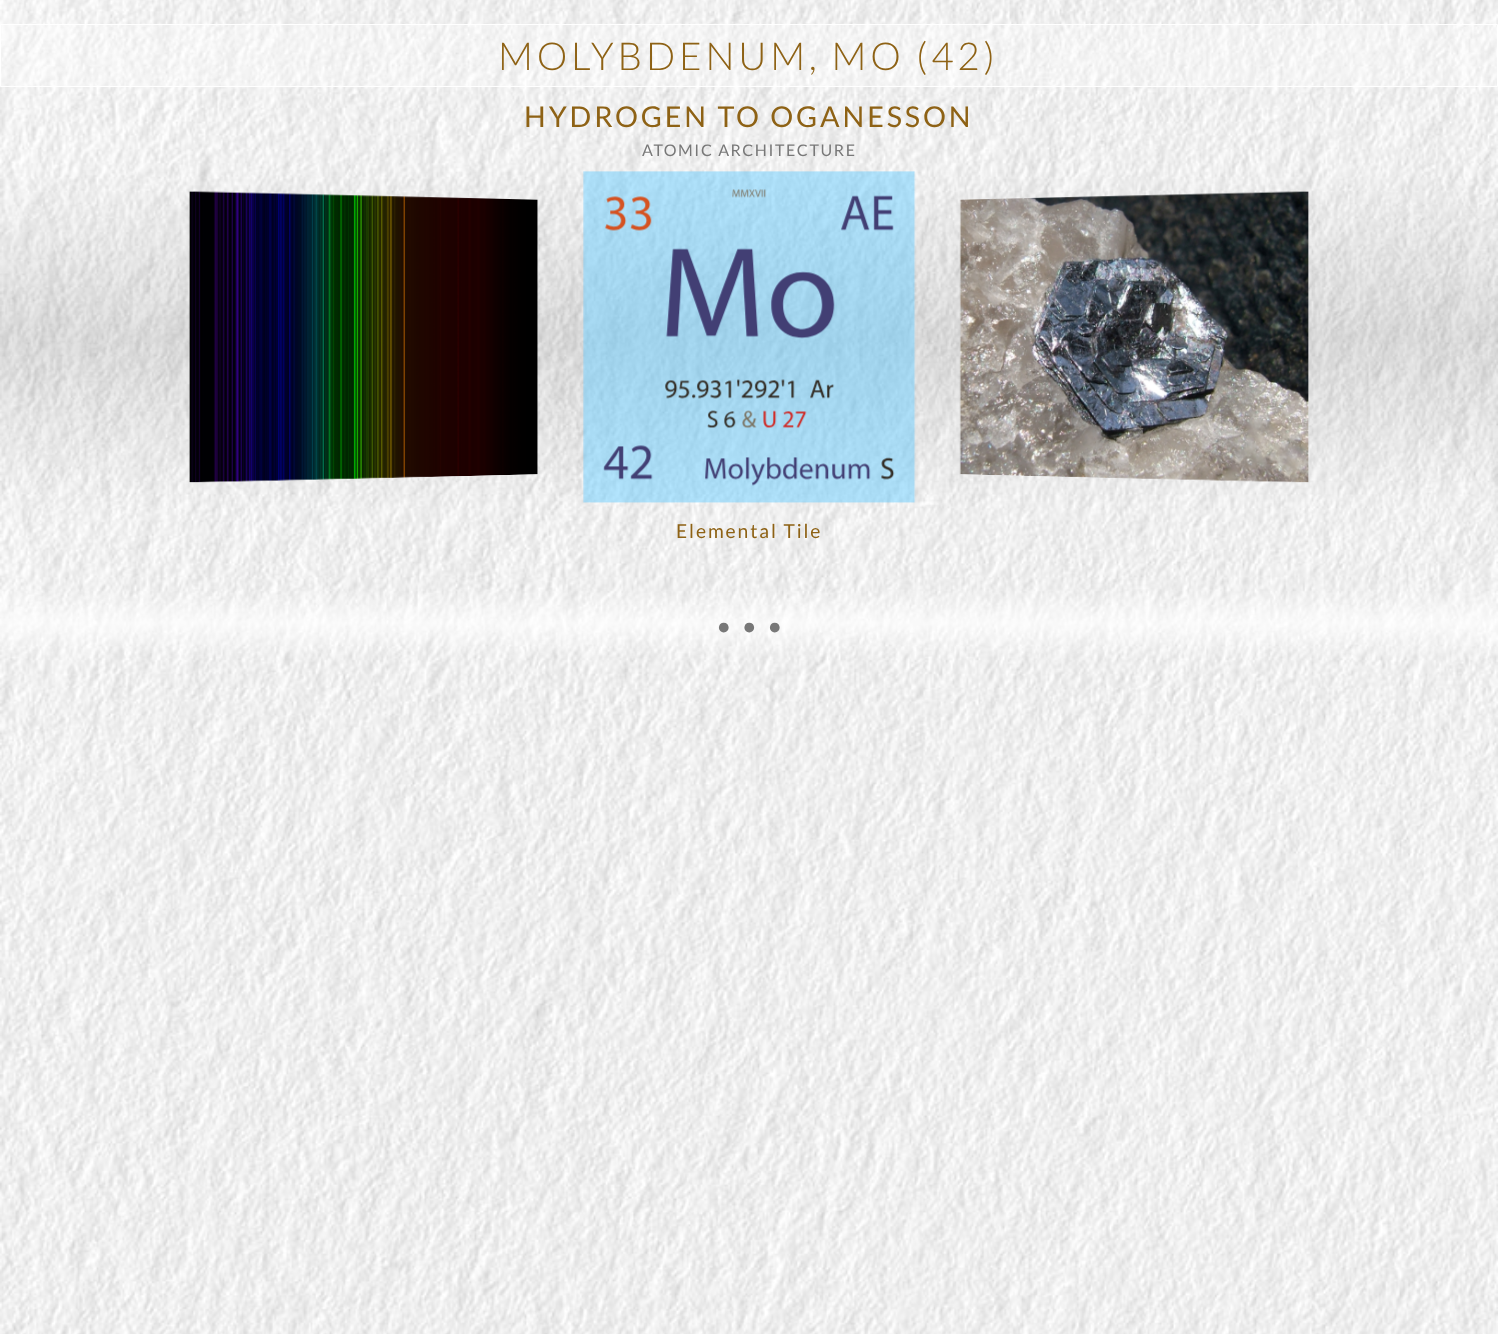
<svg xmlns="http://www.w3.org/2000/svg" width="1498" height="1334">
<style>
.a{font:300 38.4px Lato;letter-spacing:3.8px;fill:#8e6215}
.b{font:28.75px Lato;letter-spacing:2.9px;fill:#8e6215}
.c{font:16px Lato;letter-spacing:1.6px;fill:#787878}
.d{font:19.25px Lato;letter-spacing:1.9px;fill:#8e6215}
.e{font:300 96px Lato;fill:#787878}
</style>
<rect width="100%" height="100%" fill="#fff"/>
<image href="1.png" x="0" y="0" width="1498" height="1334"/>
<path fill="#ffffff4d" stroke="#fff" d="M0.5 24.5h1497v62H0.5z"/>
<image href="2.png" x="189" y="191" width="349" height="292"/>
<image href="3.png" x="583" y="171" width="333" height="332"/>
<image href="4.png" x="959" y="191" width="350" height="292"/>
<text class="a" x="498" y="70">MOLYBDENUM, MO (42)</text>
<text class="b" x="524" y="127">HYDROGEN TO OGANESSON</text>
<text class="c" x="642" y="156">ATOMIC ARCHITECTURE</text>
<text class="d" x="676" y="538">Elemental Tile</text>
<text class="e" x="711" y="656">···</text>
</svg>
